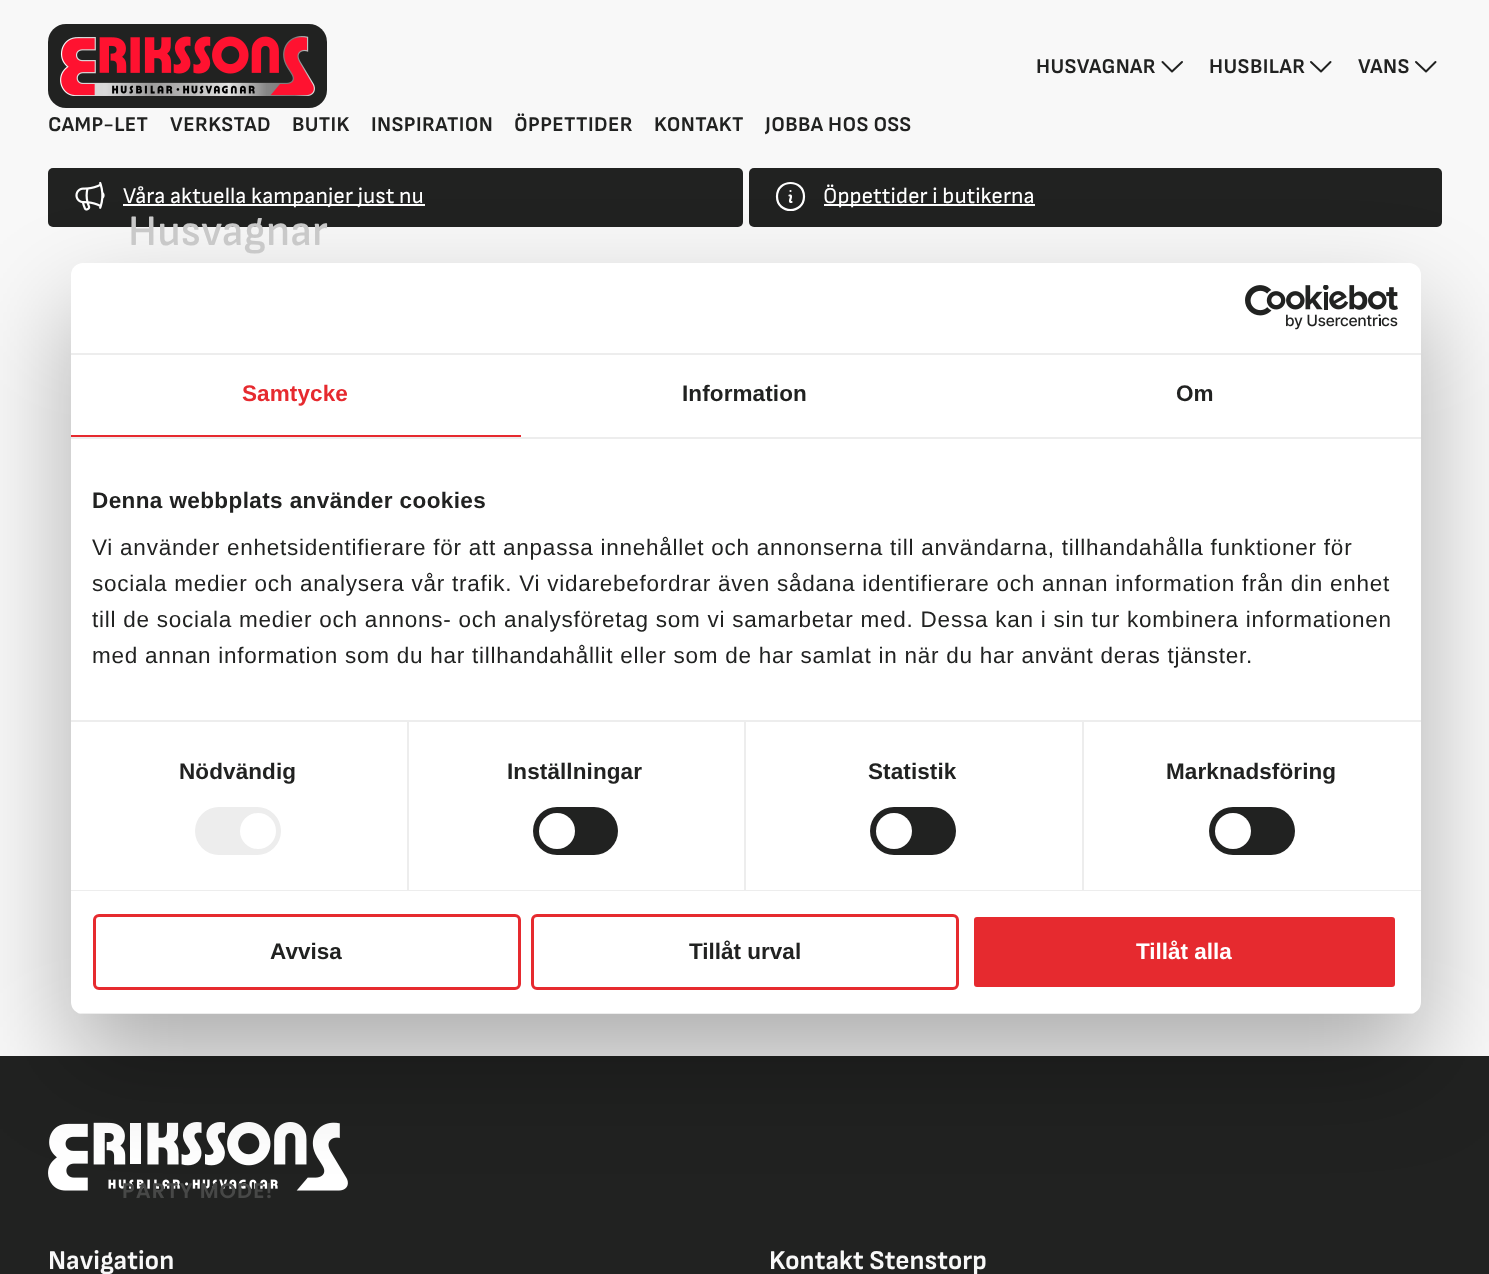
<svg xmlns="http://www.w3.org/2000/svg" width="1489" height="1274">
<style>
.a{font:bold 21px Sofia Sans;letter-spacing:0.4px;fill:#212221}
.b{font:22.5px Sofia Sans;fill:#fff}
.c{font:600 43.5px Sofia Sans;fill:#c9c9c9}
.d{font:bold 22.5px Liberation Sans;letter-spacing:0.1px;fill:#e62a2f}
.e{font:bold 22.5px Liberation Sans;letter-spacing:0.1px;fill:#212221}
.f{font:bold 22.5px Liberation Sans;letter-spacing:0.4px;fill:#212221}
.g{font:22.5px Liberation Sans;letter-spacing:0.75px;fill:#212221}
.h{font:bold 22.5px Liberation Sans;fill:#212221}
.i{font:bold 22.5px Liberation Sans;fill:#fff}
.j{font:600 21px Poppins;letter-spacing:1px;fill:#474847}
.k{font:bold 27px Sofia Sans;fill:#f8f8f8}
</style>
<defs>
<clipPath id="clip1"><rect x="71" y="263" width="1350" height="751" rx="12"/></clipPath>
</defs>
<rect width="100%" height="100%" fill="#f8f8f8"/>
<rect fill="#212221" x="48" y="24" width="279" height="84" rx="18"/>
<image href="1.png" x="60" y="36" width="255" height="60"/>
<path fill="none" stroke="#212221" stroke-width="2" stroke-linecap="round" stroke-linejoin="round" d="M1182 62l-10 9.5l-9.5-9.5"/>
<path fill="none" stroke="#212221" stroke-width="2" stroke-linecap="round" stroke-linejoin="round" d="M1330.5 62l-9.5 9.5l-10-9.5"/>
<path fill="none" stroke="#212221" stroke-width="2" stroke-linecap="round" stroke-linejoin="round" d="M1435.5 62l-9.5 9.5l-10-9.5"/>
<rect fill="#212221" x="48" y="168" width="695" height="59" rx="5"/>
<image href="2.png" x="75" y="181" width="30" height="30"/>
<path fill="#fff" d="M123 204h302v2H123z"/>
<rect fill="#212221" x="749" y="168" width="693" height="59" rx="5"/>
<path fill="none" stroke="#fff" stroke-width="2.2" stroke-linecap="round" stroke-linejoin="round" d="M789.5 195.5h1c2 1-2 5.5 0 6.5h1m12.5-5.5c0 18-27 18-27 0c0-18 27-18 27 0zm-13.5-5.5h0z"/>
<path fill="#fff" d="M824 204h211v2H824z"/>
<path fill="#212221" d="M0 1056h1489v218H0z"/>
<image href="4.png" x="48" y="1122" width="300" height="69"/>
<rect fill="#0000004d" filter="blur(51px)" x="71" y="311" width="1350" height="751" rx="12"/>
<rect fill="#fff" x="71" y="263" width="1350" height="751" rx="12"/>
<path fill="#ededed" d="M71 353h1350v2H71z"/>
<image href="3.png" x="1245" y="285" width="153" height="45"/>
<path fill="#ededed" d="M71 437h1350v2H71z"/>
<path fill="#e62a2f" d="M71 435h450v2H71z"/>
<path fill="#ededed" d="M71 720h1350v2H71z"/>
<path fill="#ededed" d="M71 890h1350v1H71z"/>
<path fill="#ededed" d="M407 722h2v168H407z"/>
<rect fill="#ededed" x="195" y="807" width="86" height="48" rx="24"/>
<circle fill="#fff" cx="258" cy="831" r="18"/>
<path fill="#ededed" d="M744 722h2v168H744z"/>
<rect fill="#212221" x="533" y="807" width="85" height="48" rx="24"/>
<circle fill="#fff" cx="557" cy="831" r="18"/>
<path fill="#ededed" d="M1082 722h2v168H1082z"/>
<rect fill="#212221" x="870" y="807" width="86" height="48" rx="24"/>
<circle fill="#fff" cx="894" cy="831" r="18"/>
<rect fill="#212221" x="1209" y="807" width="86" height="48" rx="24"/>
<circle fill="#fff" cx="1233" cy="831" r="18"/>
<g clip-path="url(#clip1)">
<path fill="#ededed" d="M71 1013h1350v1H71z"/>
</g>
<rect fill="none" stroke="#e62a2f" stroke-width="3" x="94.5" y="915.5" width="425" height="73" rx="4.5"/>
<rect fill="none" stroke="#e62a2f" stroke-width="3" x="532.5" y="915.5" width="425" height="73" rx="4.5"/>
<rect fill="#e62a2f" stroke="#fff" stroke-width="3" x="972.5" y="915.5" width="424" height="73" rx="4.5"/>
<text class="a" x="1036" y="73">HUSVAGNAR</text>
<text class="a" x="1209" y="73">HUSBILAR</text>
<text class="a" x="1358" y="73">VANS</text>
<text class="a" x="48" y="131">CAMP-LET</text>
<text class="a" x="170" y="131">VERKSTAD</text>
<text class="a" x="292" y="131">BUTIK</text>
<text class="a" x="371" y="131">INSPIRATION</text>
<text class="a" x="514" y="131">ÖPPETTIDER</text>
<text class="a" x="654" y="131">KONTAKT</text>
<text class="a" x="765" y="131">JOBBA HOS OSS</text>
<text class="b" x="123" y="203">Våra aktuella kampanjer just nu</text>
<text class="b" x="823" y="203">Öppettider i butikerna</text>
<text class="c" x="128" y="245">Husvagnar</text>
<text class="d" x="242" y="401">Samtycke</text>
<text class="e" x="682" y="401">Information</text>
<text class="e" x="1176" y="401">Om</text>
<text class="f" x="92" y="508">Denna webbplats använder cookies</text>
<text class="g" x="92" y="555">Vi använder enhetsidentifierare för att anpassa innehållet och annonserna till användarna, tillhandahålla funktioner för</text>
<text class="g" x="92" y="591">sociala medier och analysera vår trafik. Vi vidarebefordrar även sådana identifierare och annan information från din enhet</text>
<text class="g" x="92" y="627">till de sociala medier och annons- och analysföretag som vi samarbetar med. Dessa kan i sin tur kombinera informationen</text>
<text class="g" x="92" y="663">med annan information som du har tillhandahållit eller som de har samlat in när du har använt deras tjänster.</text>
<text class="e" x="179" y="779">Nödvändig</text>
<text class="e" x="507" y="779">Inställningar</text>
<text class="e" x="868" y="779">Statistik</text>
<text class="e" x="1166" y="779">Marknadsföring</text>
<text class="h" x="270" y="959">Avvisa</text>
<text class="h" x="689" y="959">Tillåt urval</text>
<text class="i" x="1136" y="959">Tillåt alla</text>
<text class="j" x="122" y="1198">PARTY MODE!</text>
<text class="k" x="48" y="1269">Navigation</text>
<text class="k" x="769" y="1269">Kontakt Stenstorp</text>
</svg>
